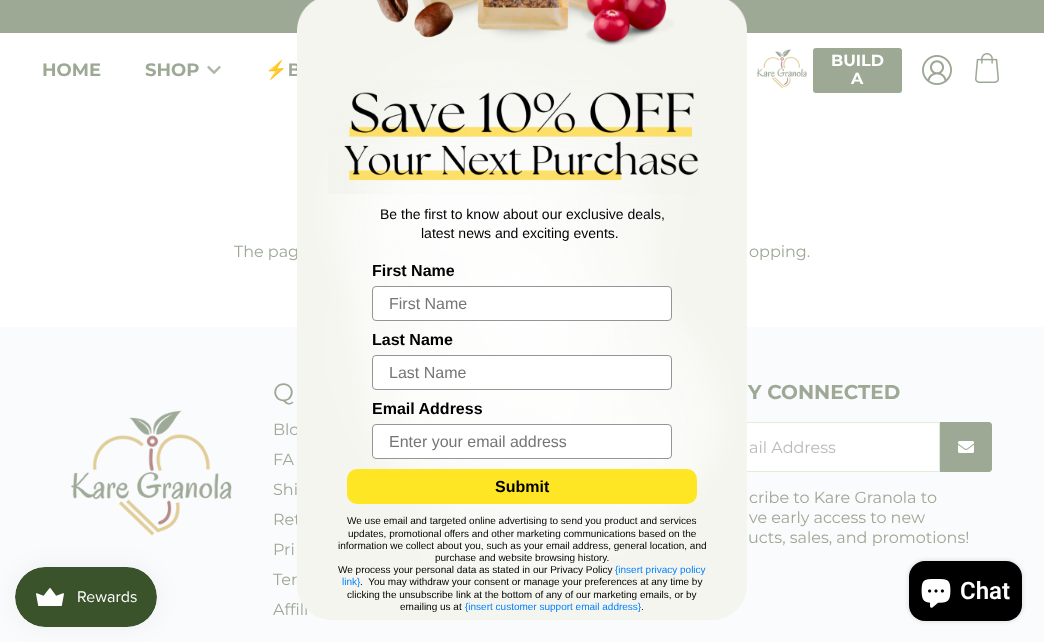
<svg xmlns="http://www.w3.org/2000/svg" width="1044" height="642">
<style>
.a{font:bold 18px Montserrat;fill:#9da995}
.b{font:bold 18px Noto Color Emoji;fill:#9da995}
.c{font:bold 18px Liberation Sans;fill:#9da995}
.d{font:bold 16px Montserrat;fill:#fff}
.e{font:16px Montserrat;fill:#9da995}
.f{font:25px Montserrat;fill:#9da995}
.g{font:10px Liberation Sans;fill:#000}
.h{font:10px Liberation Sans;fill:#0080ff}
.i{font:bold 16px Liberation Sans;fill:#000}
.j{font:16px Liberation Sans;fill:#767676}
.k{font:14px Liberation Sans;fill:#000}
.l{font:bold 20px Montserrat;fill:#9da995}
.m{font:16px Montserrat;fill:#bababa}
.n{font:600 24px Roboto;fill:#fff}
</style>
<rect width="100%" height="100%" fill="#fff"/>
<path fill="#9da995" d="M0 0h1044v33H0z"/>
<image href="1.png" x="207" y="65" width="14" height="10"/>
<image href="2.png" x="756" y="49" width="51" height="39"/>
<rect fill="#9da995" x="813" y="48" width="89" height="45" rx="3"/>
<image href="3.png" x="922" y="55" width="30" height="30"/>
<image href="4.png" x="975" y="53" width="24" height="30"/>
<path fill="#fafbfd" d="M0 327h1044v315H0z"/>
<image href="8.png" x="71" y="410" width="161" height="126"/>
<rect fill="#0000000d" filter="blur(12.5px)" x="15" y="567" width="142" height="60" rx="30"/>
<image href="7.png" x="15" y="567" width="142" height="60"/>
<path fill="#fff" d="M746 423h193v48H746z"/>
<path fill="none" stroke="#e1ecda" d="M710.5 422.5h229v49H710.5z"/>
<path fill="#9da995" d="M940 422h49c1.5 0 3 1.5 3 3v44c0 1.5-1.5 3-3 3h-49z"/>
<image href="9.png" x="958" y="441" width="16" height="12"/>
<rect fill="#00000026" filter="blur(2.5px)" x="909" y="561" width="113" height="60" rx="16"/>
<rect fill="#000" x="909" y="561" width="113" height="60" rx="16"/>
<image href="10.png" x="921" y="579" width="30" height="29"/>
<text class="a" x="42" y="76">HOME</text>
<text class="a" x="145" y="76">SHOP</text>
<text class="b" x="265" y="76">⚡</text>
<text class="c" x="288" y="76">B</text>
<text class="d" x="831" y="66">BUILD</text>
<text class="d" x="851" y="84">A</text>
<text class="e" x="234" y="257">The pag</text>
<text class="e" x="749" y="257">opping.</text>
<text class="f" x="273" y="401">Q</text>
<text class="e" x="273" y="435">Blo</text>
<text class="e" x="273" y="465">FA</text>
<text class="e" x="273" y="495">Shi</text>
<text class="e" x="273" y="525">Ret</text>
<text class="e" x="273" y="555">Pri</text>
<text class="e" x="273" y="585">Ter</text>
<text class="e" x="273" y="615">Affili</text>
<image href="5.png" x="297" y="0" width="450" height="620"/>
<text class="g" x="641" y="610">.</text>
<text class="h" x="465" y="610">{insert customer support email address}</text>
<text class="g" x="400" y="610">emailing us at</text>
<text class="g" x="347" y="598">clicking the unsubscribe link at the bottom of any of our marketing emails, or by</text>
<text class="g" xml:space="preserve" x="360" y="585">.  You may withdraw your consent or manage your preferences at any time by</text>
<text class="h" x="342" y="585">link}</text>
<text class="h" x="615" y="573">{insert privacy policy</text>
<text class="g" x="338" y="573">We process your personal data as stated in our Privacy Policy</text>
<text class="g" x="435" y="561">purchase and website browsing history.</text>
<text class="g" x="338" y="549">information we collect about you, such as your email address, general location, and</text>
<text class="g" x="348" y="537">updates, promotional offers and other marketing communications based on the</text>
<text class="g" x="347" y="524">We use email and targeted online advertising to send you product and services</text>
<rect fill="#ffe624" x="347" y="469" width="350" height="35" rx="10"/>
<text class="i" x="495" y="492">Submit</text>
<rect fill="#fff" stroke="#949596" x="372.5" y="424.5" width="299" height="34" rx="3.5"/>
<text class="j" x="389" y="447">Enter your email address</text>
<text class="i" x="372" y="414">Email Address</text>
<rect fill="#fff" stroke="#949596" x="372.5" y="355.5" width="299" height="34" rx="3.5"/>
<text class="j" x="389" y="378">Last Name</text>
<text class="i" x="372" y="345">Last Name</text>
<rect fill="#fff" stroke="#949596" x="372.5" y="286.5" width="299" height="34" rx="3.5"/>
<text class="j" x="389" y="309">First Name</text>
<text class="i" x="372" y="276">First Name</text>
<text class="k" x="421" y="238">latest news and exciting events.</text>
<text class="k" x="380" y="219">Be the first to know about our exclusive deals,</text>
<image href="6.png" x="328" y="80" width="371" height="114"/>
<text class="l" x="748" y="399">Y CONNECTED</text>
<text class="m" x="749" y="453">ail Address</text>
<text class="e" x="749" y="503">cribe to Kare Granola to</text>
<text class="e" x="749" y="523">ve early access to new</text>
<text class="e" x="748" y="543">ucts, sales, and promotions!</text>
<text class="n" x="960" y="599">Chat</text>
</svg>
